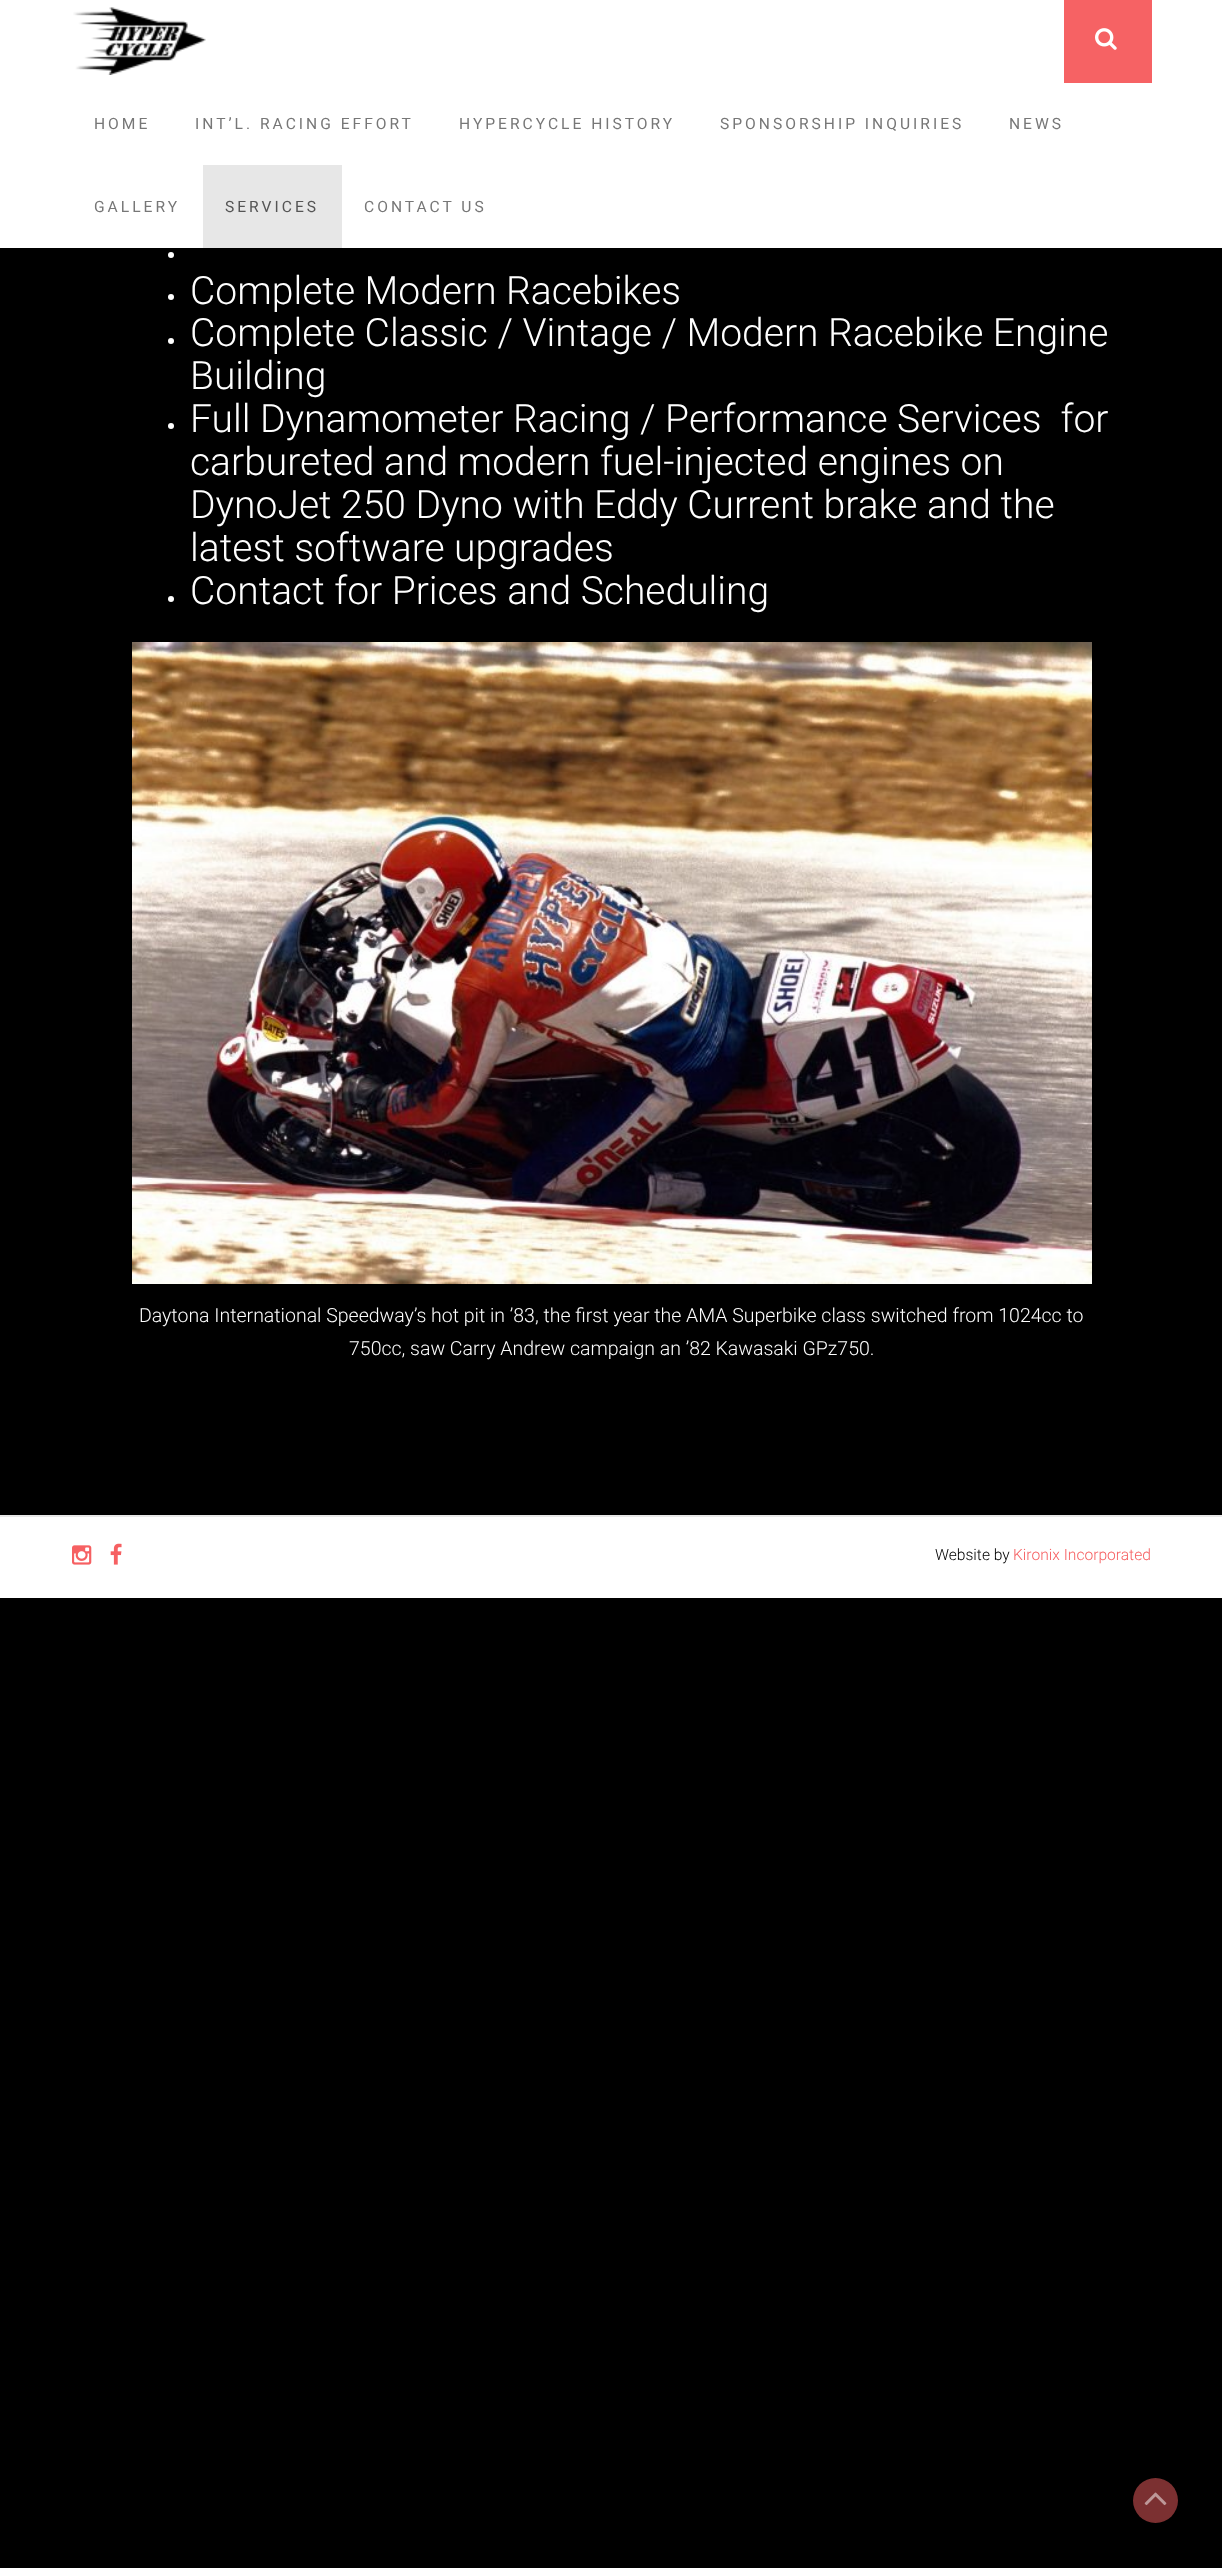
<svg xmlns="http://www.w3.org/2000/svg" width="1222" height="2568">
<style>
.a{font:15.6px Roboto;letter-spacing:3px;fill:#777}
.b{font:15.6px Roboto;letter-spacing:3px;fill:#555}
.c{font:300 39px Roboto;fill:#fefefe}
.d{font:300 19.5px Roboto;fill:#fefefe}
.e{font:300 15.6px Roboto;fill:#000}
.f{font:300 15.6px Roboto;fill:#f66062}
</style>
<rect width="100%" height="100%" fill="#000"/>
<path fill="#fff" d="M0 0h1222v248H0z"/>
<image href="1.png" x="73" y="7" width="133" height="68"/>
<path fill="#f66264" d="M1064 0h88v83H1064z"/>
<image href="2.png" x="1095" y="28" width="22" height="22"/>
<path fill="#e7e7e7" d="M203 165h139v83H203z"/>
<circle fill="#fefefe" cx="171" cy="255" r="3"/>
<circle fill="#fefefe" cx="171" cy="297" r="3"/>
<circle fill="#fefefe" cx="171" cy="341" r="3"/>
<circle fill="#fefefe" cx="171" cy="426" r="3"/>
<circle fill="#fefefe" cx="171" cy="599" r="3"/>
<image href="3.png" x="132" y="642" width="960" height="642"/>
<path fill="#e7e7e7" d="M0 1515h1222v2H0z"/>
<path fill="#fff" d="M0 1517h1222v81H0z"/>
<image href="4.png" x="72" y="1545" width="20" height="20"/>
<image href="5.png" x="110" y="1543" width="12" height="22"/>
<circle fill="#7b3031" cx="1155.5" cy="2500.5" r="22.5"/>
<image href="6.png" x="1144" y="2492" width="23" height="14"/>
<text class="a" x="94" y="129">HOME</text>
<text class="a" x="195" y="129">INT’L. RACING EFFORT</text>
<text class="a" x="459" y="129">HYPERCYCLE HISTORY</text>
<text class="a" x="720" y="129">SPONSORSHIP INQUIRIES</text>
<text class="a" x="1009" y="129">NEWS</text>
<text class="a" x="94" y="212">GALLERY</text>
<text class="b" x="225" y="212">SERVICES</text>
<text class="a" x="364" y="212">CONTACT US</text>
<text class="c" x="190" y="304">Complete Modern Racebikes</text>
<text class="c" x="190" y="346">Complete Classic / Vintage / Modern Racebike Engine</text>
<text class="c" x="190" y="389">Building</text>
<text class="c" xml:space="preserve" x="190" y="432">Full Dynamometer Racing / Performance Services  for</text>
<text class="c" x="190" y="475">carbureted and modern fuel-injected engines on</text>
<text class="c" x="190" y="518">DynoJet 250 Dyno with Eddy Current brake and the</text>
<text class="c" x="190" y="561">latest software upgrades</text>
<text class="c" x="190" y="604">Contact for Prices and Scheduling</text>
<text class="d" x="139" y="1322">Daytona International Speedway’s hot pit in ’83, the first year the AMA Superbike class switched from 1024cc to</text>
<text class="d" x="349" y="1355">750cc, saw Carry Andrew campaign an ’82 Kawasaki GPz750.</text>
<text class="e" x="935" y="1560">Website by</text>
<text class="f" x="1013" y="1560">Kironix Incorporated</text>
</svg>
